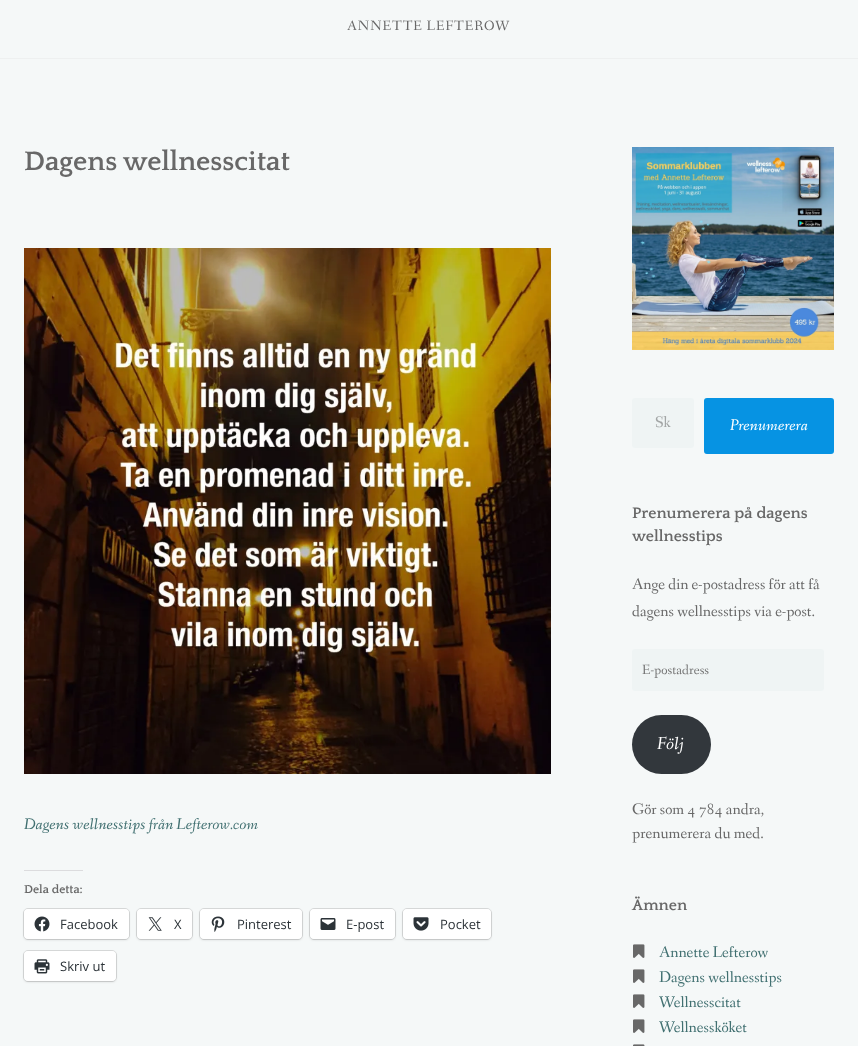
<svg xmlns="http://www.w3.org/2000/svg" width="858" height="1046">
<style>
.a{font:14px Fanwood Text;letter-spacing:1px;fill:#686868}
.b{font:bold 28px Quattrocento;fill:#686868}
.c{font:italic 16px Fanwood Text;fill:#417071}
.d{font:bold 12px Quattrocento;fill:#686868}
.e{font:13px Open Sans;fill:#2c3338}
.f{font:16px Fanwood Text;fill:#a2a5a5}
.g{font:italic 16px Fanwood Text;fill:#fff}
.h{font:bold 16px Quattrocento;fill:#686868}
.i{font:16px Fanwood Text;fill:#686868}
.j{font:14px Fanwood Text;fill:#757575}
.k{font:italic 18px Fanwood Text;fill:#fff}
.l{font:16px Fanwood Text;fill:#417071}
</style>
<rect width="100%" height="100%" fill="#f5f8f8"/>
<path fill="#eef0f0" d="M0 58h858v1H0z"/>
<image href="1.png" x="24" y="248" width="527" height="526"/>
<path fill="#dcdcde" d="M24 870h59v1H24z"/>
<rect fill="none" stroke="#d8dada" x="23.5" y="908.5" width="106" height="31" rx="4.5"/>
<rect fill="#0000001f" filter="blur(1px)" x="24" y="910" width="105" height="30" rx="4"/>
<rect fill="#fff" x="24" y="909" width="105" height="30" rx="4"/>
<image href="2.png" x="34" y="916" width="16" height="16"/>
<rect fill="none" stroke="#d8dada" x="136.5" y="908.5" width="56" height="31" rx="4.5"/>
<rect fill="#0000001f" filter="blur(1px)" x="137" y="910" width="55" height="30" rx="4"/>
<rect fill="#fff" x="137" y="909" width="55" height="30" rx="4"/>
<image href="3.png" x="148" y="917" width="14" height="14"/>
<rect fill="none" stroke="#d8dada" x="199.5" y="908.5" width="103" height="31" rx="4.5"/>
<rect fill="#0000001f" filter="blur(1px)" x="200" y="910" width="102" height="30" rx="4"/>
<rect fill="#fff" x="200" y="909" width="102" height="30" rx="4"/>
<image href="4.png" x="211" y="916" width="14" height="16"/>
<rect fill="none" stroke="#d8dada" x="309.5" y="908.5" width="86" height="31" rx="4.5"/>
<rect fill="#0000001f" filter="blur(1px)" x="310" y="910" width="85" height="30" rx="4"/>
<rect fill="#fff" x="310" y="909" width="85" height="30" rx="4"/>
<image href="5.png" x="320" y="918" width="16" height="12"/>
<rect fill="none" stroke="#d8dada" x="402.5" y="908.5" width="89" height="31" rx="4.5"/>
<rect fill="#0000001f" filter="blur(1px)" x="403" y="910" width="88" height="30" rx="4"/>
<rect fill="#fff" x="403" y="909" width="88" height="30" rx="4"/>
<image href="6.png" x="413" y="917" width="16" height="14"/>
<rect fill="none" stroke="#d8dada" x="23.5" y="950.5" width="93" height="31" rx="4.5"/>
<rect fill="#0000001f" filter="blur(1px)" x="24" y="952" width="92" height="30" rx="4"/>
<rect fill="#fff" x="24" y="951" width="92" height="30" rx="4"/>
<image href="7.png" x="34" y="959" width="16" height="15"/>
<image href="8.png" x="632" y="147" width="202" height="203"/>
<rect fill="#eff4f4" x="632" y="398" width="62" height="50" rx="3"/>
<rect fill="#0693e3" stroke="#0693e3" stroke-width="3" x="705.5" y="399.5" width="127" height="53" rx="1.5"/>
<rect fill="#eff4f4" x="632" y="649" width="192" height="42" rx="3"/>
<rect fill="#32373c" x="632" y="715" width="79" height="59" rx="29.5"/>
<image href="9.png" x="633" y="944" width="12" height="14"/>
<image href="9.png" x="633" y="969" width="12" height="14"/>
<image href="9.png" x="633" y="994" width="12" height="14"/>
<image href="9.png" x="633" y="1019" width="12" height="14"/>
<image href="10.png" x="633" y="1044" width="12" height="2"/>
<text class="a" x="347" y="30">ANNETTE LEFTEROW</text>
<text class="b" x="24" y="170">Dagens wellnesscitat</text>
<text class="c" x="24" y="829">Dagens wellnesstips från Lefterow.com</text>
<text class="d" x="24" y="893">Dela detta:</text>
<text class="e" x="60" y="929">Facebook</text>
<text class="e" x="174" y="929">X</text>
<text class="e" x="237" y="929">Pinterest</text>
<text class="e" x="346" y="929">E-post</text>
<text class="e" x="440" y="929">Pocket</text>
<text class="e" x="60" y="971">Skriv ut</text>
<text class="f" x="655" y="427">Sk</text>
<text class="g" x="730" y="430">Prenumerera</text>
<text class="h" x="632" y="518">Prenumerera på dagens</text>
<text class="h" x="632" y="541">wellnesstips</text>
<text class="i" x="632" y="589">Ange din e-postadress för att få</text>
<text class="i" x="632" y="616">dagens wellnesstips via e-post.</text>
<text class="j" x="642" y="674">E-postadress</text>
<text class="k" x="657" y="749">Följ</text>
<text class="i" x="632" y="814">Gör som 4 784 andra,</text>
<text class="i" x="632" y="838">prenumerera du med.</text>
<text class="h" x="632" y="910">Ämnen</text>
<text class="l" x="659" y="957">Annette Lefterow</text>
<text class="l" x="659" y="982">Dagens wellnesstips</text>
<text class="l" x="659" y="1007">Wellnesscitat</text>
<text class="l" x="659" y="1032">Wellnessköket</text>
</svg>
